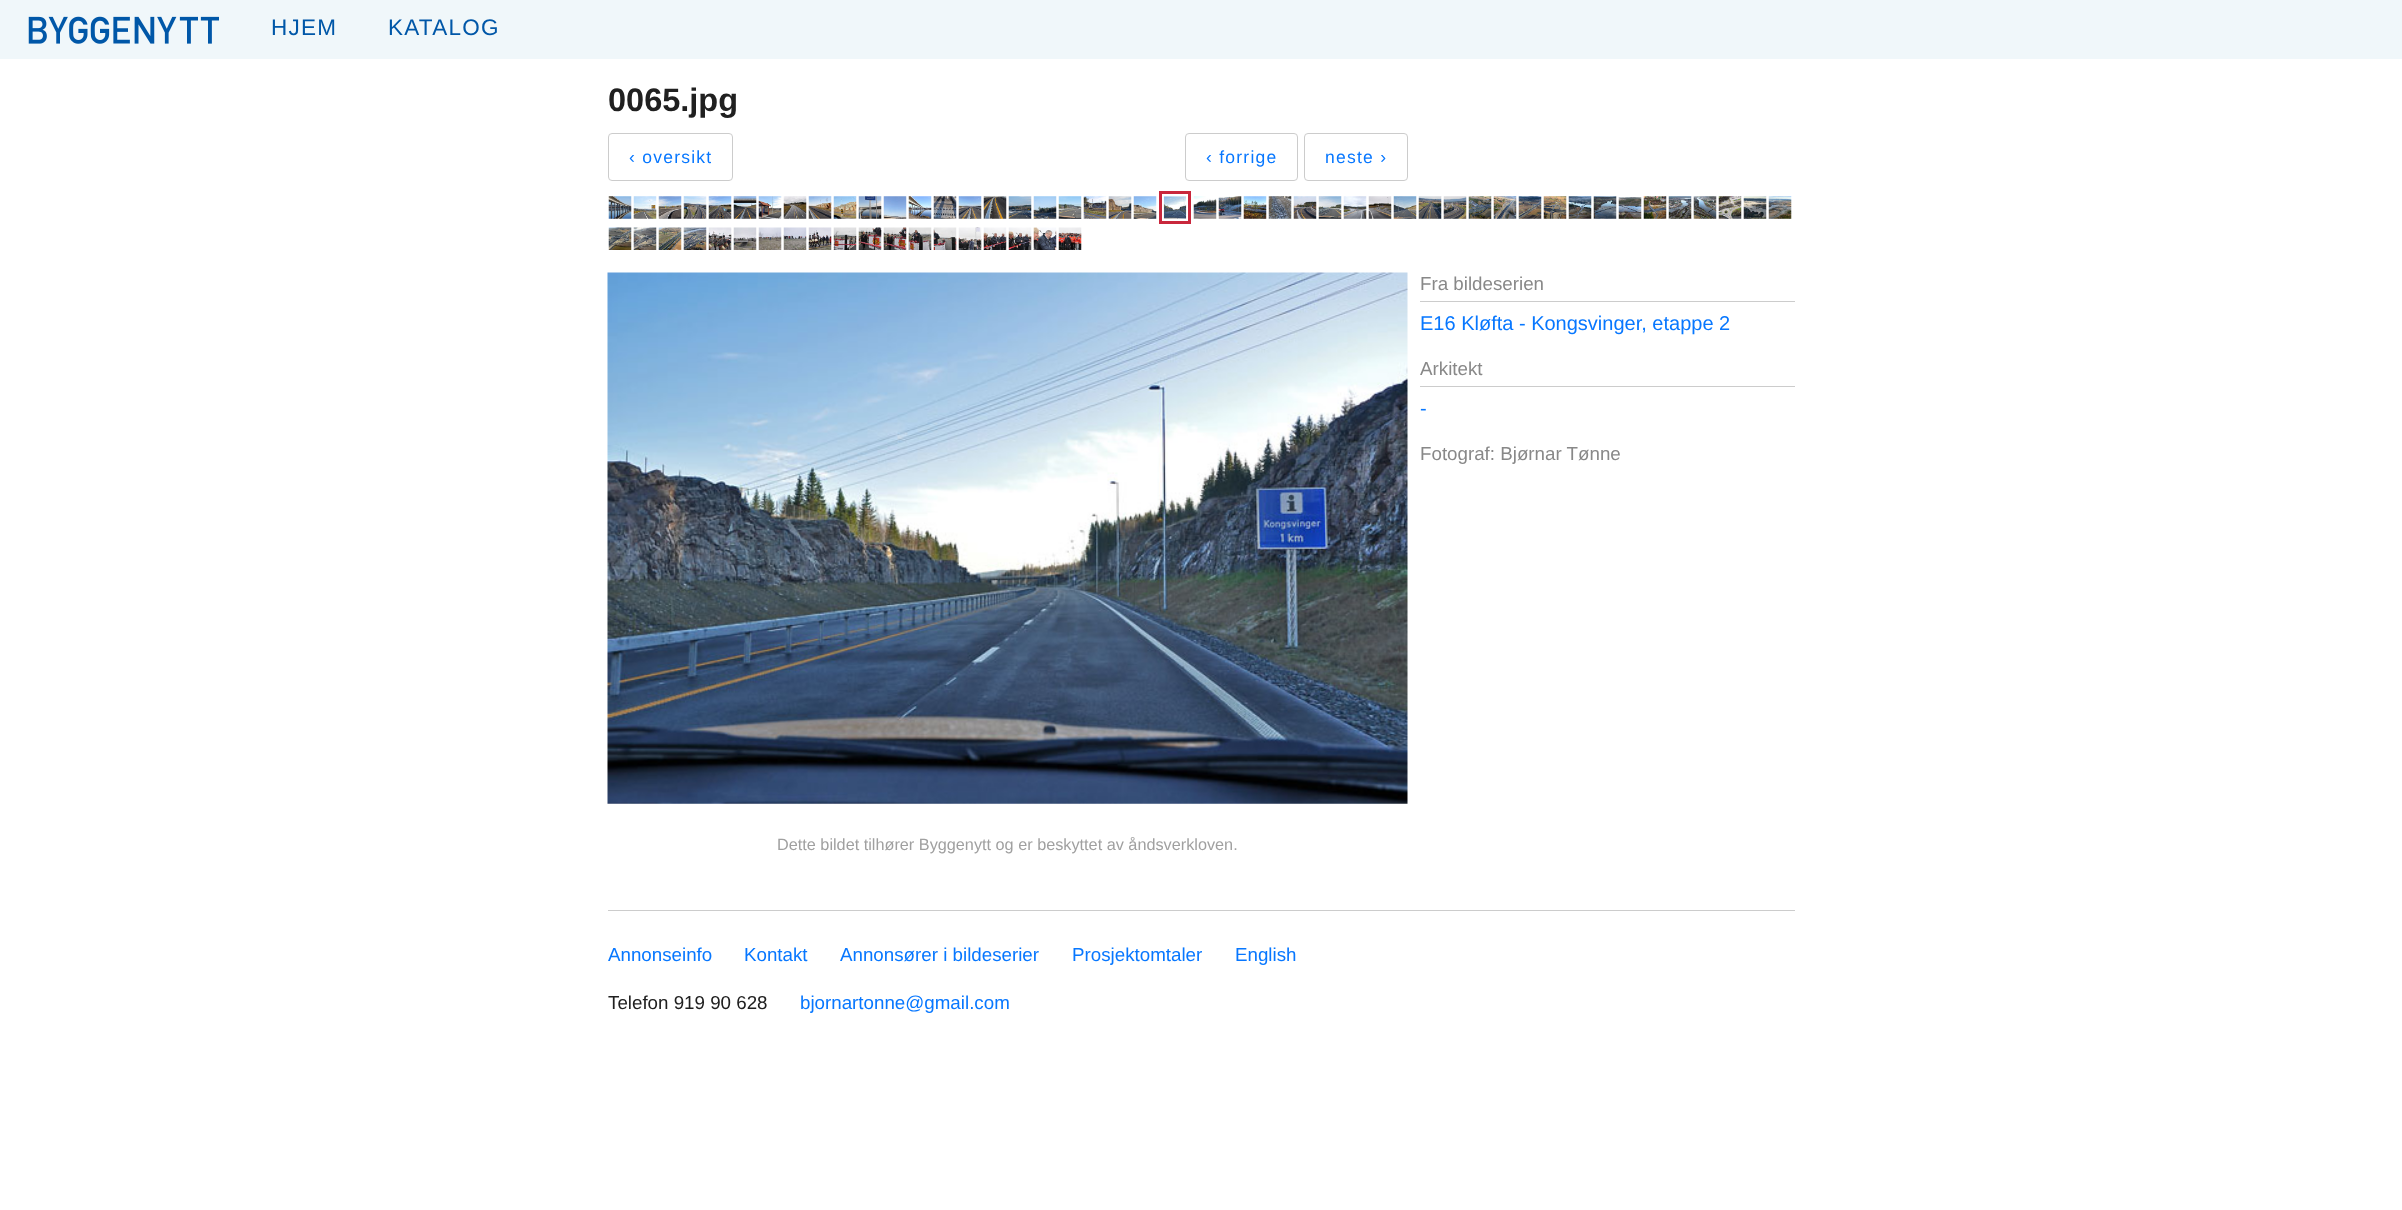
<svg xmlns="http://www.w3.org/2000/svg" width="2402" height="1210">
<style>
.a{font:22.5px Liberation Sans;letter-spacing:1.25px;fill:#0057a8}
.b{font:bold 32.5px Liberation Sans;fill:#202020}
.c{font:17.5px Liberation Sans;letter-spacing:1.25px;fill:#0777ff}
.d{font:18.75px Liberation Sans;fill:#888}
.e{font:20px Liberation Sans;fill:#0777ff}
.f{font:16.25px Liberation Sans;fill:#a0a0a0}
.g{font:18.75px Liberation Sans;fill:#0777ff}
.h{font:18.75px Liberation Sans;fill:#202020}
</style>
<rect width="100%" height="100%" fill="#fff"/>
<path fill="#f0f7fa" d="M0 0h2402v59H0z"/>
<image href="1.png" x="28" y="16" width="191" height="28"/>
<rect fill="none" stroke="#ccc" x="608.5" y="133.5" width="124" height="47" rx="3.5"/>
<rect fill="none" stroke="#ccc" x="1185.5" y="133.5" width="112" height="47" rx="3.5"/>
<rect fill="none" stroke="#ccc" x="1304.5" y="133.5" width="103" height="47" rx="3.5"/>
<image href="2.png" x="608" y="196" width="24" height="23"/>
<image href="3.png" x="633" y="196" width="24" height="23"/>
<image href="4.png" x="658" y="196" width="24" height="23"/>
<image href="5.png" x="683" y="196" width="24" height="23"/>
<image href="6.png" x="708" y="196" width="24" height="23"/>
<image href="7.png" x="733" y="196" width="24" height="23"/>
<image href="8.png" x="758" y="196" width="24" height="23"/>
<image href="9.png" x="783" y="196" width="24" height="23"/>
<image href="10.png" x="808" y="196" width="24" height="23"/>
<image href="11.png" x="833" y="196" width="24" height="23"/>
<image href="12.png" x="858" y="196" width="24" height="23"/>
<image href="13.png" x="883" y="196" width="24" height="23"/>
<image href="14.png" x="908" y="196" width="24" height="23"/>
<image href="15.png" x="933" y="196" width="24" height="23"/>
<image href="16.png" x="958" y="196" width="24" height="23"/>
<image href="17.png" x="983" y="196" width="24" height="23"/>
<image href="18.png" x="1008" y="196" width="24" height="23"/>
<image href="19.png" x="1033" y="196" width="24" height="23"/>
<image href="20.png" x="1058" y="196" width="24" height="23"/>
<image href="21.png" x="1083" y="196" width="24" height="23"/>
<image href="22.png" x="1108" y="196" width="24" height="23"/>
<image href="23.png" x="1133" y="196" width="24" height="23"/>
<path fill="none" stroke="#c9273c" stroke-width="3" d="M1160.5 192.5h29v30H1160.5z"/>
<image href="24.png" x="1163" y="196" width="24" height="23"/>
<image href="25.png" x="1193" y="196" width="24" height="23"/>
<image href="26.png" x="1218" y="196" width="24" height="23"/>
<image href="27.png" x="1243" y="196" width="24" height="23"/>
<image href="28.png" x="1268" y="196" width="24" height="23"/>
<image href="29.png" x="1293" y="196" width="24" height="23"/>
<image href="30.png" x="1318" y="196" width="24" height="23"/>
<image href="31.png" x="1343" y="196" width="24" height="23"/>
<image href="32.png" x="1368" y="196" width="24" height="23"/>
<image href="33.png" x="1393" y="196" width="24" height="23"/>
<image href="34.png" x="1418" y="196" width="24" height="23"/>
<image href="35.png" x="1443" y="196" width="24" height="23"/>
<image href="36.png" x="1468" y="196" width="24" height="23"/>
<image href="37.png" x="1493" y="196" width="24" height="23"/>
<image href="38.png" x="1518" y="196" width="24" height="23"/>
<image href="39.png" x="1543" y="196" width="24" height="23"/>
<image href="40.png" x="1568" y="196" width="24" height="23"/>
<image href="41.png" x="1593" y="196" width="24" height="23"/>
<image href="42.png" x="1618" y="197" width="24" height="22"/>
<image href="43.png" x="1643" y="196" width="24" height="23"/>
<image href="44.png" x="1668" y="196" width="24" height="23"/>
<image href="45.png" x="1693" y="196" width="24" height="23"/>
<image href="46.png" x="1718" y="196" width="24" height="23"/>
<image href="47.png" x="1743" y="196" width="24" height="23"/>
<image href="48.png" x="1768" y="196" width="24" height="23"/>
<image href="49.png" x="608" y="227" width="24" height="23"/>
<image href="50.png" x="633" y="227" width="24" height="23"/>
<image href="51.png" x="658" y="227" width="24" height="23"/>
<image href="52.png" x="683" y="227" width="24" height="23"/>
<image href="53.png" x="708" y="227" width="24" height="23"/>
<image href="54.png" x="733" y="227" width="24" height="23"/>
<image href="55.png" x="758" y="227" width="24" height="23"/>
<image href="56.png" x="783" y="227" width="24" height="23"/>
<image href="57.png" x="808" y="227" width="24" height="23"/>
<image href="58.png" x="833" y="227" width="24" height="23"/>
<image href="59.png" x="858" y="227" width="24" height="23"/>
<image href="60.png" x="883" y="227" width="24" height="23"/>
<image href="61.png" x="908" y="227" width="24" height="23"/>
<image href="62.png" x="933" y="227" width="24" height="23"/>
<image href="63.png" x="958" y="227" width="24" height="23"/>
<image href="64.png" x="983" y="227" width="24" height="23"/>
<image href="65.png" x="1008" y="227" width="24" height="23"/>
<image href="66.png" x="1033" y="227" width="24" height="23"/>
<image href="67.png" x="1058" y="227" width="24" height="23"/>
<path fill="#ccc" d="M1420 301h375v1H1420z"/>
<path fill="#ccc" d="M1420 386h375v1H1420z"/>
<image href="68.png" x="607" y="272" width="801" height="532"/>
<path fill="#ccc" d="M608 910h1187v1H608z"/>
<text class="a" x="271" y="35">HJEM</text>
<text class="a" x="388" y="35">KATALOG</text>
<text class="b" x="608" y="111">0065.jpg</text>
<text class="c" x="629" y="163">‹ oversikt</text>
<text class="c" x="1206" y="163">‹ forrige</text>
<text class="c" x="1325" y="163">neste ›</text>
<text class="d" x="1420" y="290">Fra bildeserien</text>
<text class="e" x="1420" y="330">E16 Kløfta - Kongsvinger, etappe 2</text>
<text class="d" x="1420" y="375">Arkitekt</text>
<text class="e" x="1420" y="415">-</text>
<text class="d" x="1420" y="460">Fotograf: Bjørnar Tønne</text>
<text class="f" x="777" y="850">Dette bildet tilhører Byggenytt og er beskyttet av åndsverkloven.</text>
<text class="g" x="608" y="961">Annonseinfo</text>
<text class="g" x="744" y="961">Kontakt</text>
<text class="g" x="840" y="961">Annonsører i bildeserier</text>
<text class="g" x="1072" y="961">Prosjektomtaler</text>
<text class="g" x="1235" y="961">English</text>
<text class="h" x="608" y="1009">Telefon 919 90 628</text>
<text class="g" x="800" y="1009">bjornartonne@gmail.com</text>
</svg>
